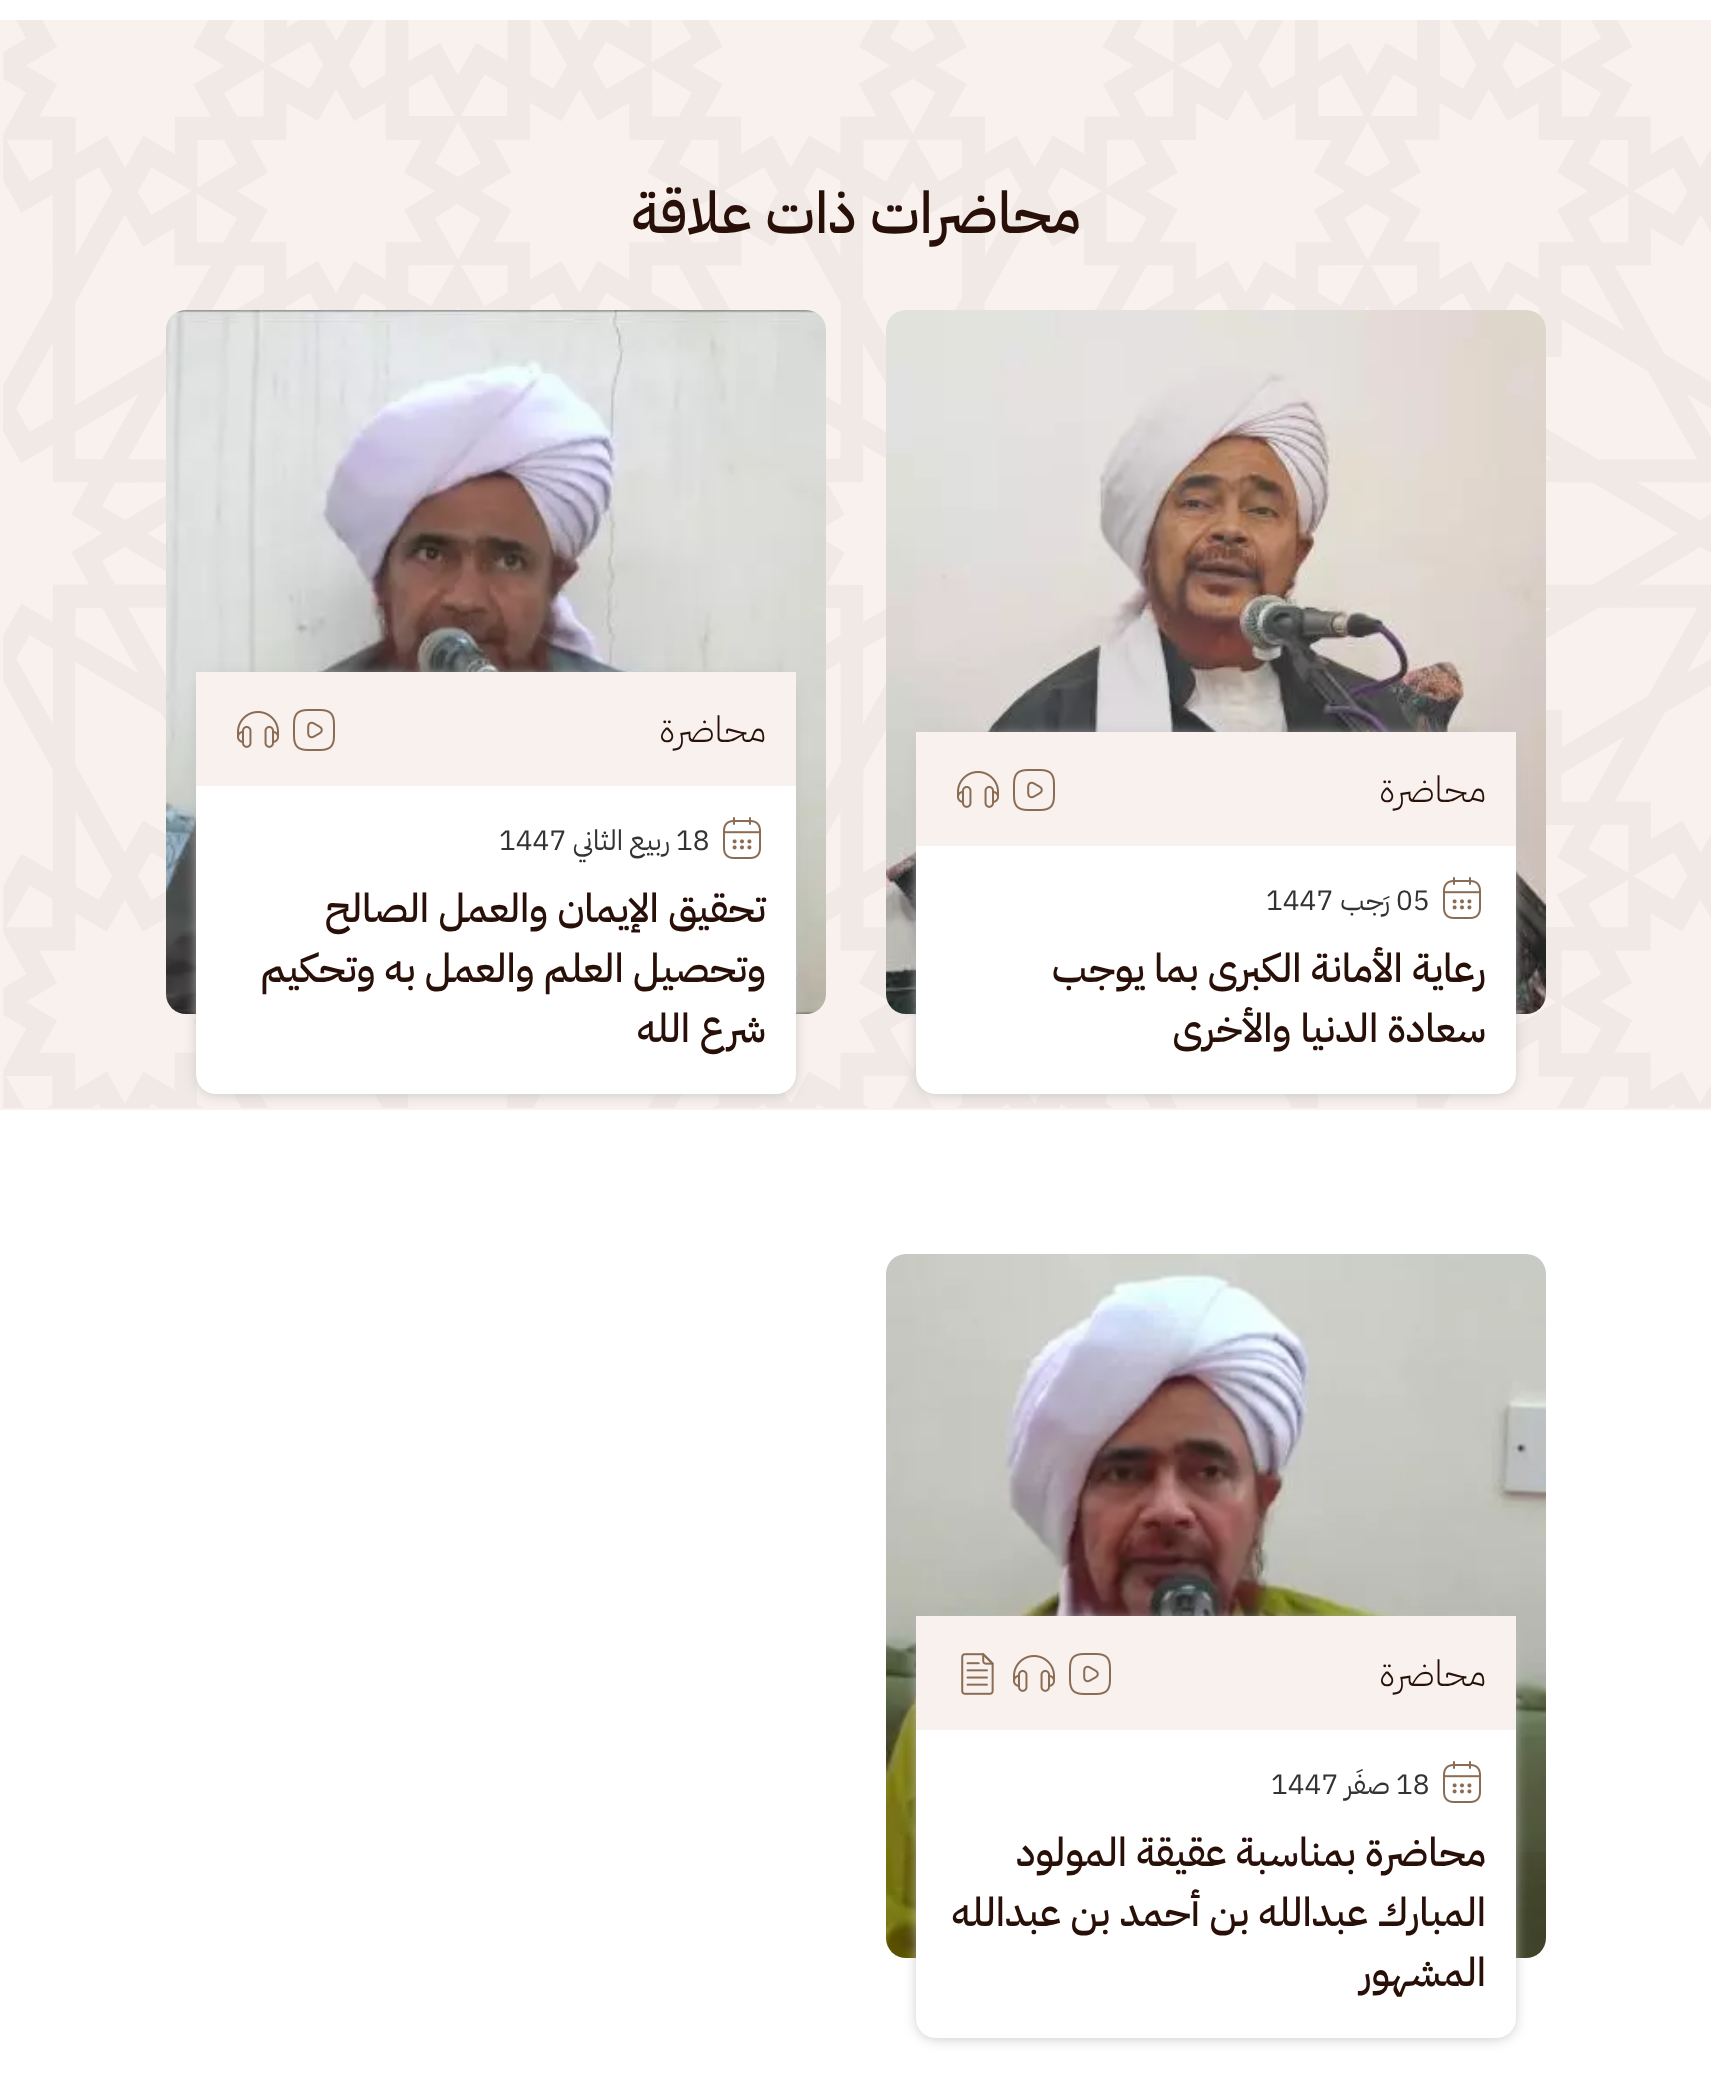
<svg xmlns="http://www.w3.org/2000/svg" width="1711" height="2082">
<style>
.a{font:500 57.75px IBM Plex Sans Arabic;direction:rtl;fill:#280f07}
.b{font:300 36px IBM Plex Sans Arabic;direction:rtl;fill:#280f07}
.c{font:28px IBM Plex Sans Arabic;fill:#333}
.d{font:28px IBM Plex Sans Arabic;direction:rtl;fill:#333}
.e{font:500 40px IBM Plex Sans Arabic;direction:rtl;fill:#280f07}
</style>
<rect width="100%" height="100%" fill="#fff"/>
<path fill="#f9f1ee" d="M0 20h1711v1090H0z"/>
<image href="1.png" x="3" y="20" width="1708" height="1088"/>
<image href="2.png" x="886" y="310" width="660" height="704"/>
<rect fill="#c2c2c2" filter="blur(7px)" x="918" y="736" width="596" height="358" rx="18"/>
<rect fill="#fff" x="916" y="732" width="600" height="362" rx="20"/>
<path fill="#f9f1ee" d="M916 732h600v114H916z"/>
<image href="3.png" x="1013" y="769" width="42" height="42"/>
<image href="4.png" x="957" y="771" width="42" height="37"/>
<image href="5.png" x="1443" y="877" width="38" height="42"/>
<image href="6.png" x="166" y="310" width="660" height="704"/>
<rect fill="#c2c2c2" filter="blur(7px)" x="198" y="676" width="596" height="418" rx="18"/>
<rect fill="#fff" x="196" y="672" width="600" height="422" rx="20"/>
<path fill="#f9f1ee" d="M196 672h600v114H196z"/>
<image href="3.png" x="293" y="709" width="42" height="42"/>
<image href="4.png" x="237" y="711" width="42" height="37"/>
<image href="5.png" x="723" y="817" width="38" height="42"/>
<image href="7.png" x="886" y="1254" width="660" height="704"/>
<rect fill="#c2c2c2" filter="blur(7px)" x="918" y="1620" width="596" height="418" rx="18"/>
<rect fill="#fff" x="916" y="1616" width="600" height="422" rx="20"/>
<path fill="#f9f1ee" d="M916 1616h600v114H916z"/>
<image href="3.png" x="1069" y="1653" width="42" height="42"/>
<image href="4.png" x="1013" y="1655" width="42" height="37"/>
<image href="8.png" x="961" y="1653" width="33" height="42"/>
<image href="5.png" x="1443" y="1761" width="38" height="42"/>
<text class="a" x="1081" y="233">محاضرات ذات علاقة</text>
<text class="b" x="1486" y="802">محاضرة</text>
<text class="c" x="1396" y="910">05</text>
<text class="d" x="1390" y="910">رَجب</text>
<text class="c" x="1266" y="910">1447</text>
<text class="e" x="1486" y="982">رعاية الأمانة الكبرى بما يوجب</text>
<text class="e" x="1486" y="1042">سعادة الدنيا والأخرى</text>
<text class="b" x="766" y="742">محاضرة</text>
<text class="c" x="676" y="850">18</text>
<text class="d" x="670" y="850">ربيع الثاني</text>
<text class="c" x="499" y="850">1447</text>
<text class="e" x="766" y="922">تحقيق الإيمان والعمل الصالح</text>
<text class="e" x="766" y="982">وتحصيل العلم والعمل به وتحكيم</text>
<text class="e" x="766" y="1042">شرع الله</text>
<text class="b" x="1486" y="1686">محاضرة</text>
<text class="c" x="1396" y="1794">18</text>
<text class="d" x="1390" y="1794">صفَر</text>
<text class="c" x="1271" y="1794">1447</text>
<text class="e" x="1486" y="1866">محاضرة بمناسبة عقيقة المولود</text>
<text class="e" x="1486" y="1926">المبارك عبدالله بن أحمد بن عبدالله</text>
<text class="e" x="1486" y="1986">المشهور</text>
</svg>
